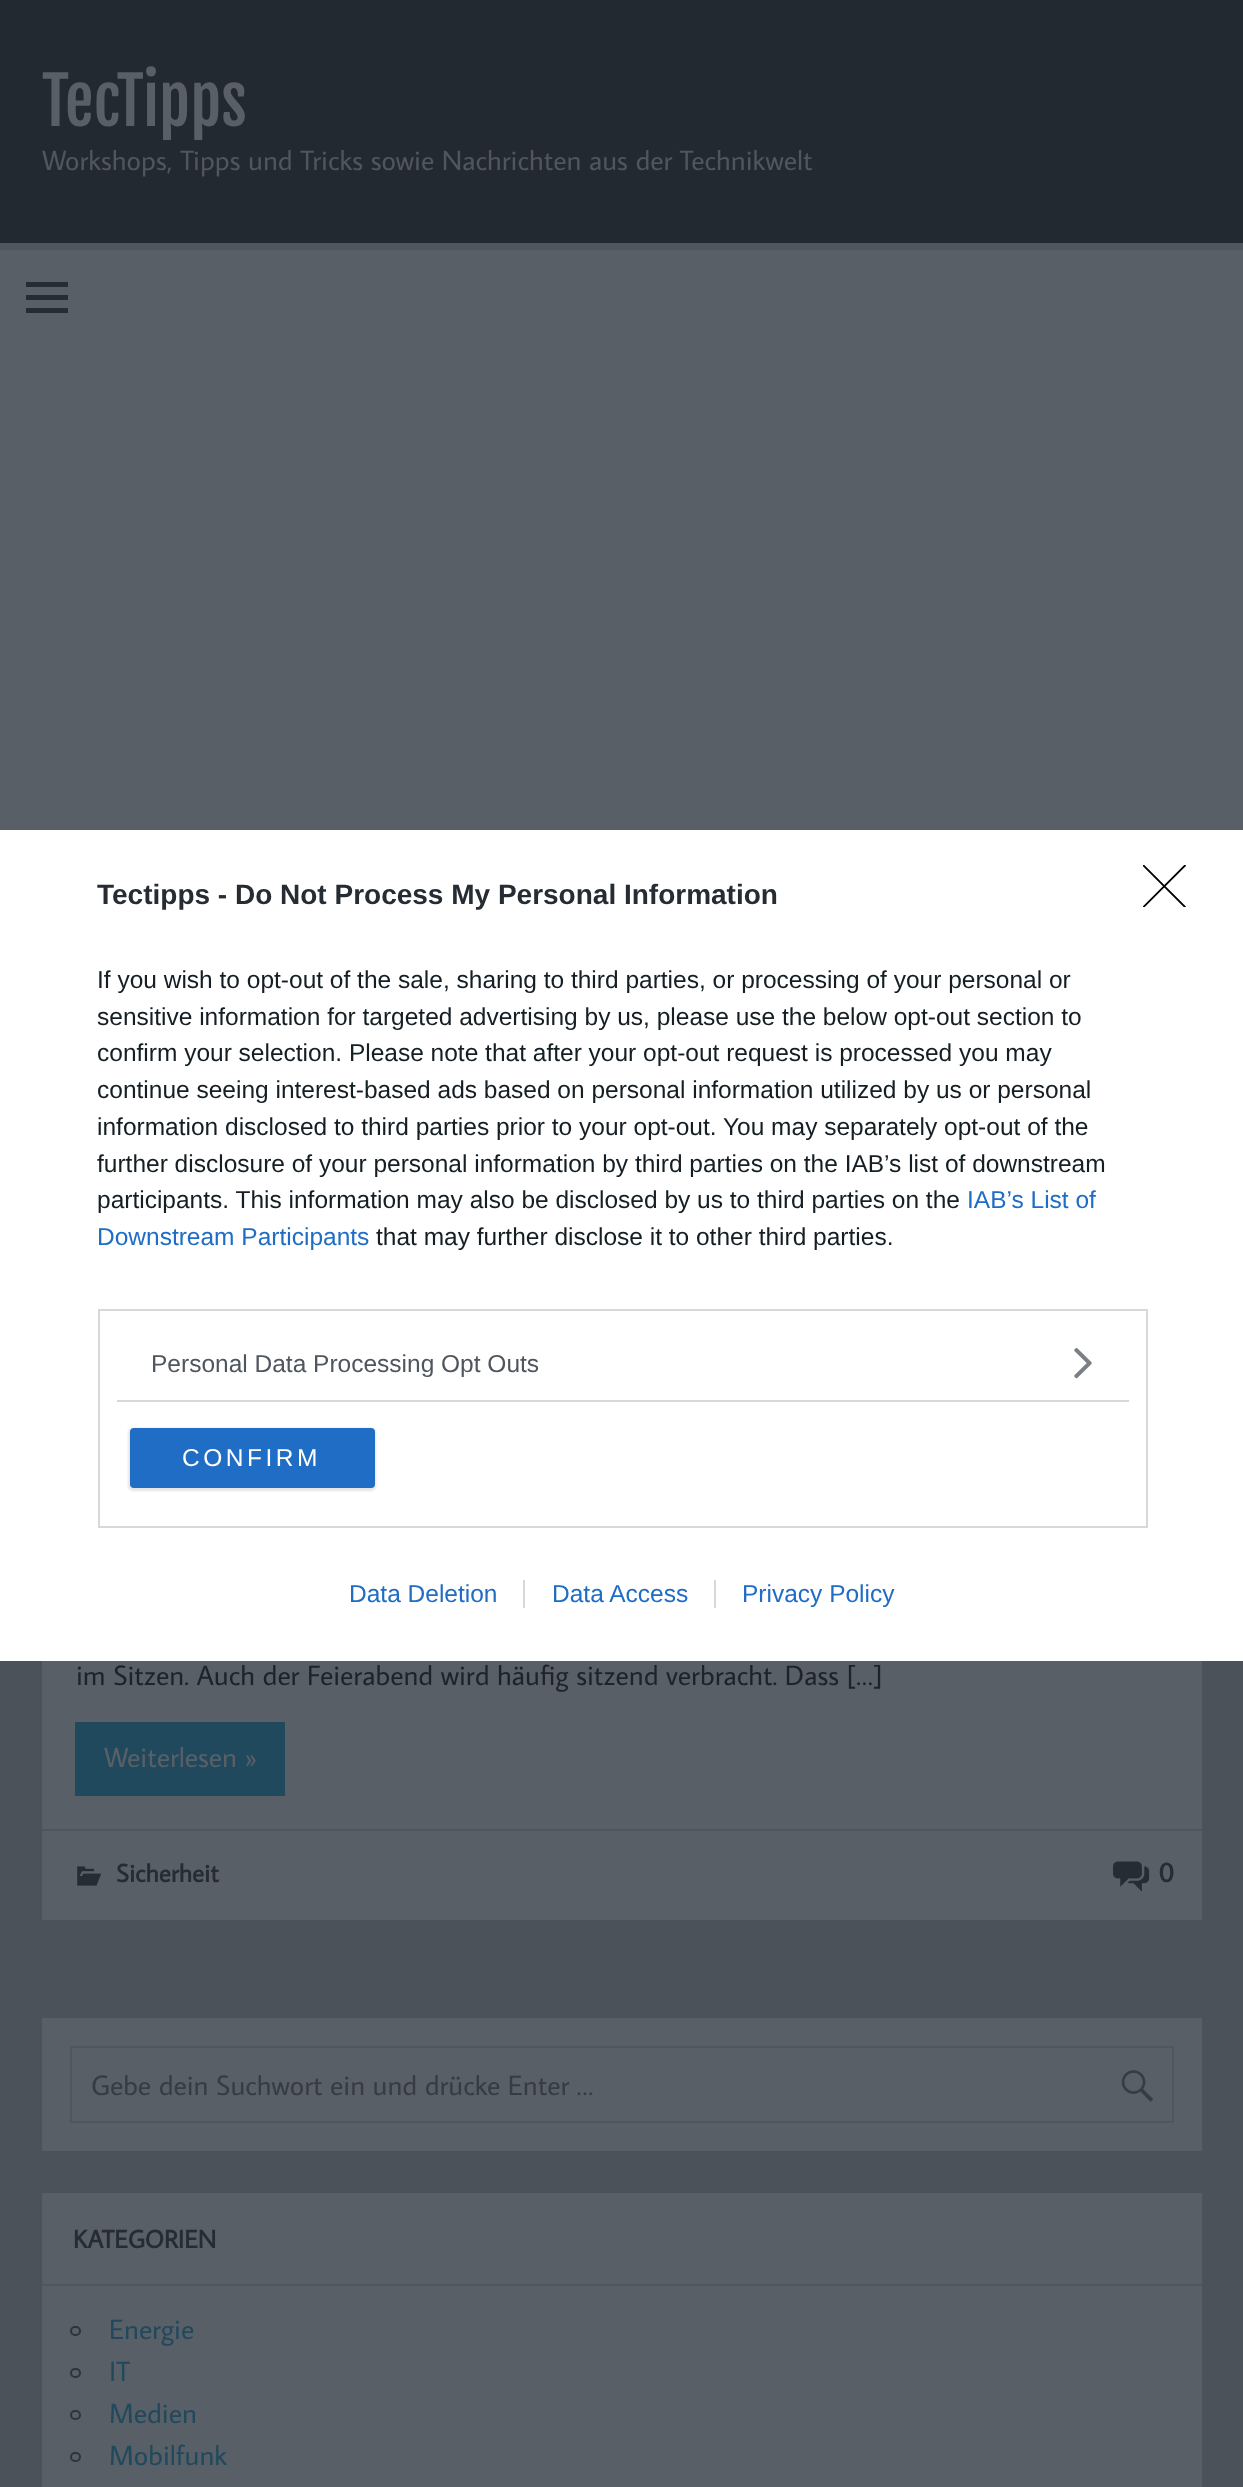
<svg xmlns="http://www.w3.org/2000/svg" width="1243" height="2487">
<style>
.a{font:64.5px Fjalla One;fill:#595f67}
.b{font:28px Average Sans;fill:#50565e}
.c{font:28px Average Sans;fill:#1d232b}
.d{font:28px Average Sans;fill:#595f67}
.e{font:bold 25.25px Average Sans;fill:#262c34}
.f{font:bold 28px Average Sans;fill:#262c34}
.g{font:28px Average Sans;fill:#363c44}
.h{font:28px Average Sans;fill:#21495d}
.i{font:bold 28px Liberation Sans;fill:#262c34}
.j{font:24.5px Liberation Sans;fill:#141e23}
.k{font:24.5px Liberation Sans;fill:#206dc5}
.l{font:24.5px Liberation Sans;fill:#50565e}
.m{font:24.5px Liberation Sans;letter-spacing:3.5px;fill:#fff}
</style>
<defs>
<clipPath id="clip1"><path d="M1143 865h44v42H1143z"/></clipPath>
</defs>
<rect width="100%" height="100%" fill="#4c525a"/>
<path fill="#232931" d="M0 0h1243v243H0z"/>
<path fill="#595f67" d="M0 250h1243v580H0z"/>
<path fill="#50565e" d="M0 243h1243v7H0z"/>
<path fill="#262c34" d="M26 313v-5h42v5zm0-31h42v5h-42zm0 18v-5h42v5z"/>
<path fill="#595f67" d="M42 1661h1160v259H42z"/>
<path fill="#21495d" d="M75 1722h210v74H75z"/>
<path fill="#50565e" d="M42 1829h1160v2H42z"/>
<image href="1.png" x="77" y="1866" width="25" height="20"/>
<image href="2.png" x="1113" y="1861" width="37" height="31"/>
<path fill="#595f67" d="M42 2018h1160v133H42z"/>
<path fill="none" stroke="#50565e" stroke-width="2" d="M71 2047h1102v75H71z"/>
<image href="3.png" x="1121" y="2070" width="33" height="32"/>
<path fill="#595f67" d="M42 2193h1160v294H42z"/>
<path fill="#50565e" d="M42 2284h1160v2H42z"/>
<rect fill="none" stroke="#2e343c" stroke-width="2" x="71" y="2327" width="9" height="8" rx="4"/>
<rect fill="none" stroke="#2e343c" stroke-width="2" x="71" y="2369" width="9" height="8" rx="4"/>
<rect fill="none" stroke="#2e343c" stroke-width="2" x="71" y="2411" width="9" height="8" rx="4"/>
<rect fill="none" stroke="#2e343c" stroke-width="2" x="71" y="2453" width="9" height="8" rx="4"/>
<path fill="#fff" d="M0 830h1243v831H0z"/>
<path fill="none" stroke="#d8d8d8" stroke-width="2" d="M99 1310h1048v217H99z"/>
<path fill="#d8d8d8" d="M117 1400h1012v2H117z"/>
<image href="4.png" x="1074" y="1348" width="18" height="31"/>
<rect fill="#0000001a" filter="blur(1px)" x="128" y="1428" width="248" height="63" rx="5"/>
<rect fill="#206dc5" x="130" y="1428" width="245" height="60" rx="4"/>
<g clip-path="url(#clip1)">
<path fill="none" stroke="#000" stroke-width="1.8" stroke-linecap="round" stroke-linejoin="round" d="M1143.5 865.5l41.5 41.5m0-41.5l-41.5 41.5"/>
</g>
<path fill="#d8d8d8" d="M523 1580h2v28H523z"/>
<path fill="#d8d8d8" d="M714 1580h2v28H714z"/>
<text class="a" x="42" y="126">TecTipps</text>
<text class="b" x="42" y="170">Workshops, Tipps und Tricks sowie Nachrichten aus der Technikwelt</text>
<text class="c" x="76" y="1685">im Sitzen. Auch der Feierabend wird häufig sitzend verbracht. Dass […]</text>
<text class="d" x="104" y="1767">Weiterlesen »</text>
<text class="e" x="116" y="1882">Sicherheit</text>
<text class="f" x="1158" y="1882">0</text>
<text class="g" x="91" y="2095">Gebe dein Suchwort ein und drücke Enter …</text>
<text class="e" x="73" y="2248">KATEGORIEN</text>
<text class="h" x="109" y="2339">Energie</text>
<text class="h" x="109" y="2381">IT</text>
<text class="h" x="109" y="2423">Medien</text>
<text class="h" x="109" y="2465">Mobilfunk</text>
<text class="i" x="97" y="904">Tectipps - Do Not Process My Personal Information</text>
<text class="j" x="97" y="988">If you wish to opt-out of the sale, sharing to third parties, or processing of your personal or</text>
<text class="j" x="97" y="1025">sensitive information for targeted advertising by us, please use the below opt-out section to</text>
<text class="j" x="97" y="1061">confirm your selection. Please note that after your opt-out request is processed you may</text>
<text class="j" x="97" y="1098">continue seeing interest-based ads based on personal information utilized by us or personal</text>
<text class="j" x="97" y="1135">information disclosed to third parties prior to your opt-out. You may separately opt-out of the</text>
<text class="j" x="97" y="1172">further disclosure of your personal information by third parties on the IAB’s list of downstream</text>
<text class="j" x="97" y="1208">participants. This information may also be disclosed by us to third parties on the</text>
<text class="k" x="967" y="1208">IAB’s List of</text>
<text class="k" x="97" y="1245">Downstream Participants</text>
<text class="j" x="376" y="1245">that may further disclose it to other third parties.</text>
<text class="l" x="151" y="1372">Personal Data Processing Opt Outs</text>
<text class="m" x="182" y="1466">CONFIRM</text>
<text class="k" x="349" y="1602">Data Deletion</text>
<text class="k" x="552" y="1602">Data Access</text>
<text class="k" x="742" y="1602">Privacy Policy</text>
</svg>
